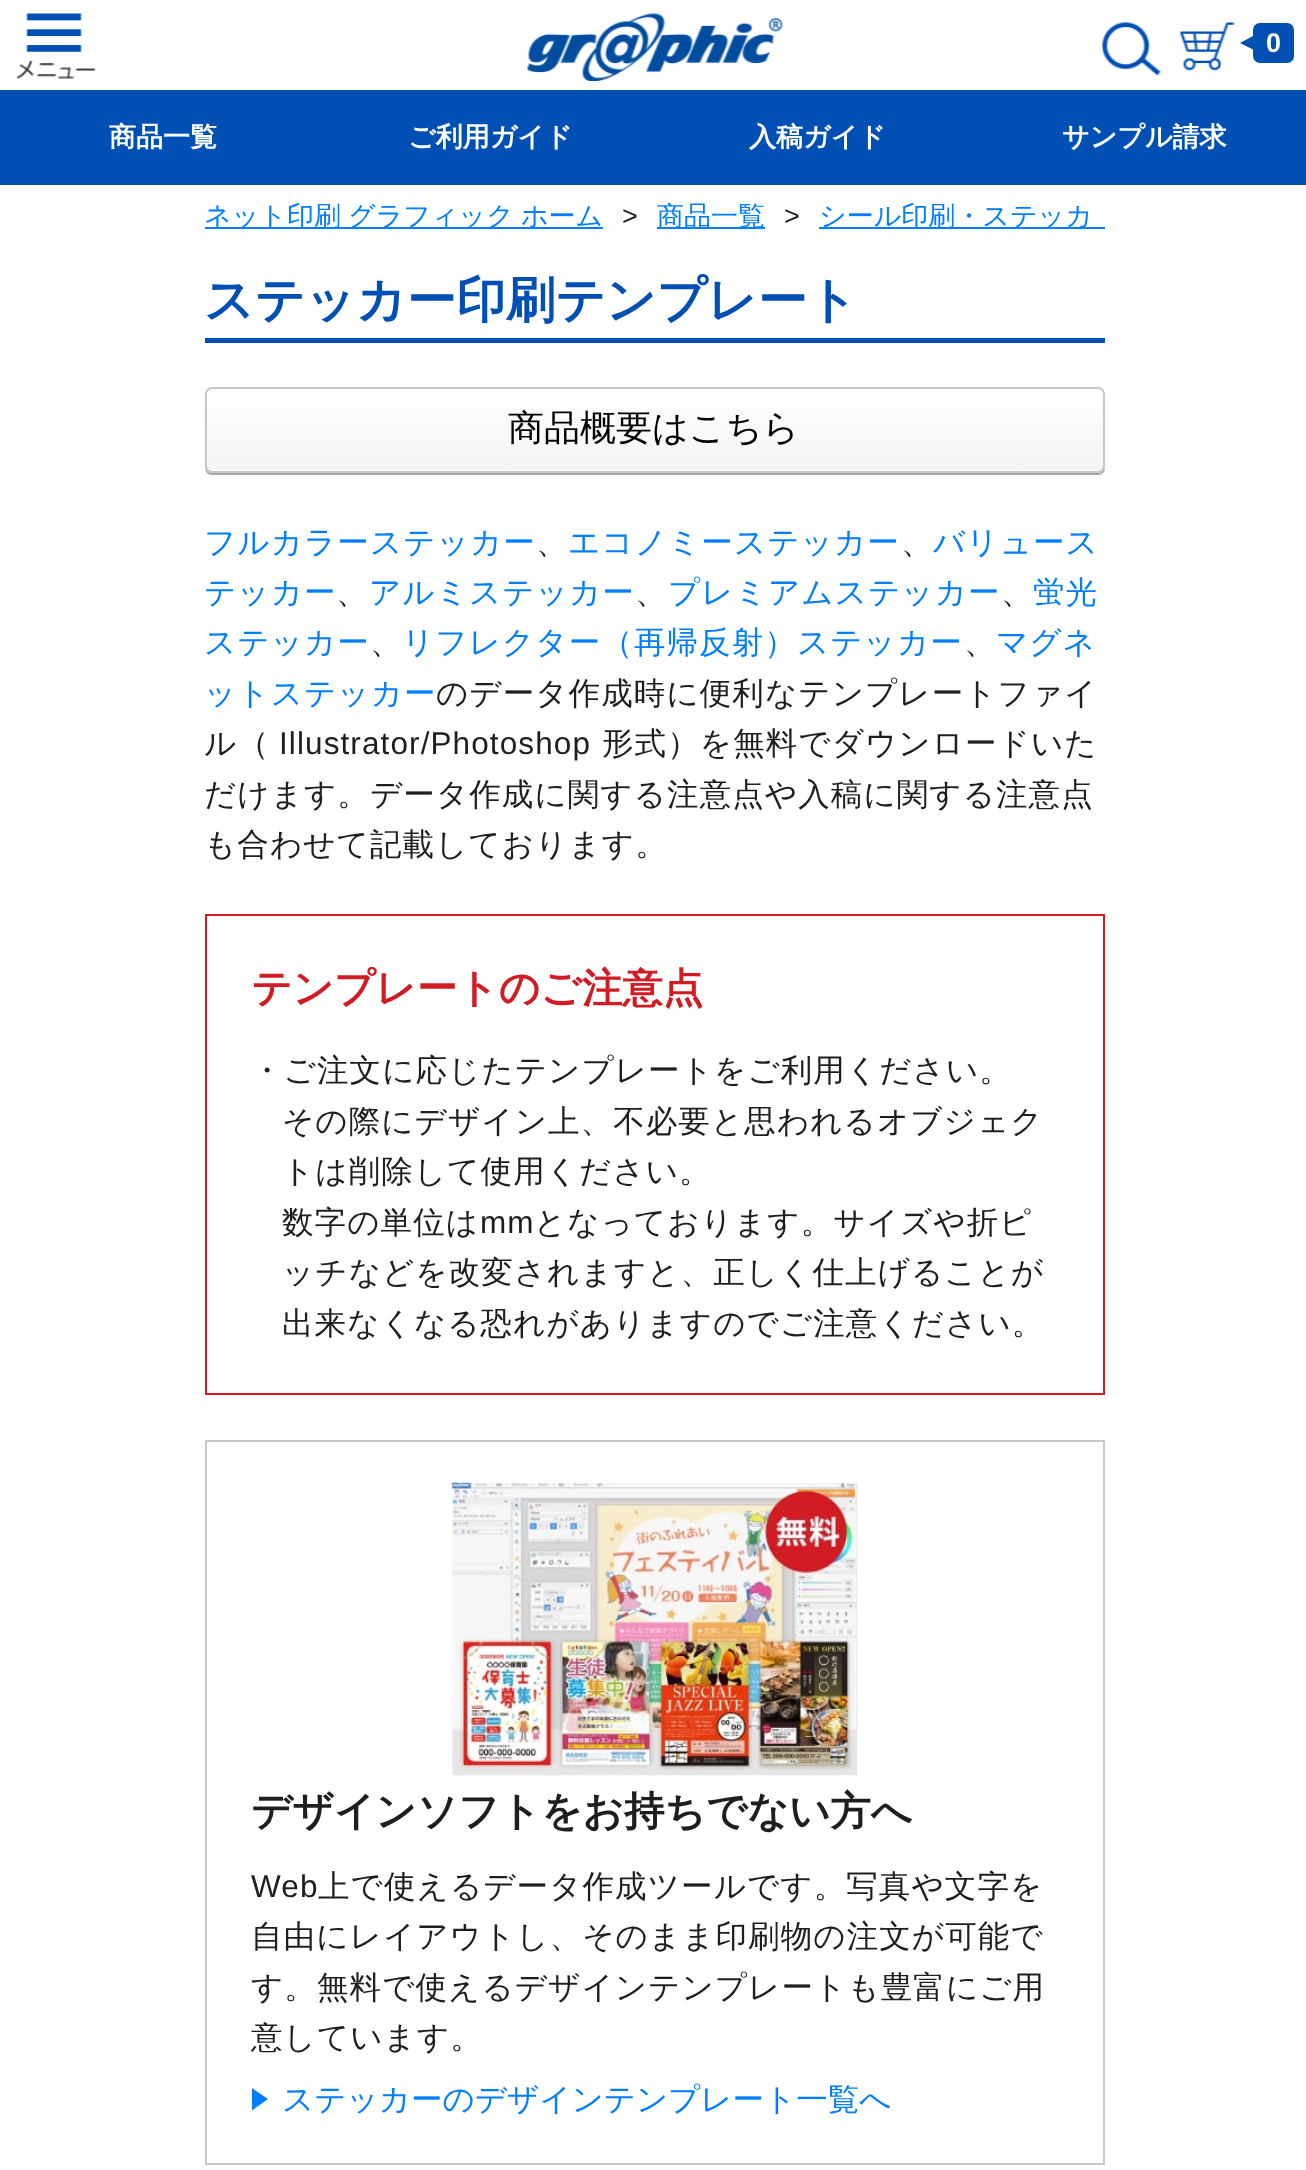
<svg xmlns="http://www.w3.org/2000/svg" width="1306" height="2170">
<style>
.a{font:bold 27px Liberation Sans;fill:#fff}
.b{font:bold 27px WenQuanYi Zen Hei;fill:#fff}
.c{font:500 27px WenQuanYi Zen Hei;fill:#007eff}
.d{font:27px Liberation Sans;fill:#1e1e1e}
.e{font:bold 49.5px WenQuanYi Zen Hei;fill:#004fb5}
.f{font:500 36px WenQuanYi Zen Hei;fill:#000}
.g{font:500 31.5px WenQuanYi Zen Hei;letter-spacing:1.1px;fill:#007eff}
.h{font:500 31.5px WenQuanYi Zen Hei;letter-spacing:1.1px;fill:#1e1e1e}
.i{font:31.5px Liberation Sans;letter-spacing:1.1px;fill:#1e1e1e}
.j{font:bold 40.5px WenQuanYi Zen Hei;fill:#d21c24}
.k{font:bold 40.5px WenQuanYi Zen Hei;fill:#1e1e1e}
.l{font:500 31.5px WenQuanYi Zen Hei;fill:#007eff}
</style>
<defs>
<clipPath id="clip1"><rect x="205" y="387" width="900" height="86" rx="7"/></clipPath>
<linearGradient id="g1" gradientUnits="userSpaceOnUse" x1="655" y1="389" x2="655" y2="470"><stop offset="0" stop-color="#fff"/><stop offset="1" stop-color="#f3f4f5"/></linearGradient>
<linearGradient id="g2" gradientUnits="userSpaceOnUse" x1="655" y1="470" x2="655" y2="551"><stop offset="0" stop-color="#fff"/><stop offset="1" stop-color="#f3f4f5"/></linearGradient>
</defs>
<rect width="100%" height="100%" fill="#fff"/>
<image href="1.png" x="16" y="13" width="81" height="66"/>
<image href="2.png" x="526" y="13" width="257" height="68"/>
<image href="3.png" x="1102" y="22" width="60" height="54"/>
<image href="4.png" x="1179" y="22" width="56" height="49"/>
<rect fill="#004fb5" x="1253" y="23" width="41" height="40" rx="7"/>
<path fill="#004fb5" d="M1253 36v13.5l-13-6.5z"/>
<path fill="#004fb5" d="M0 90h1306v95H0z"/>
<path fill="#007eff" d="M205 227h398v2H205z"/>
<path fill="#007eff" d="M657 227h108v2H657z"/>
<path fill="#007eff" d="M819 227h286v2H819z"/>
<path fill="#004fb5" d="M205 338h900v5H205z"/>
<path fill="#a8a8a8" d="M205 468c0 4 3 7 7 7h886c4 0 7-3 7-7v-74v72c0 3-3 6-7 6h-886c-4 0-6-2-7-4z"/>
<g clip-path="url(#clip1)">
<path fill="url(#g1)" d="M205 389h900v81H205z"/>
<path fill="url(#g2)" d="M205 470h900v3H205z"/>
</g>
<rect fill="none" stroke="#c6c6c6" stroke-width="2" x="206" y="388" width="898" height="84" rx="6"/>
<path fill="none" stroke="#d21c24" stroke-width="2" d="M206 915h898v479H206z"/>
<path fill="none" stroke="#c8c8c8" stroke-width="2" d="M206 1441h898v723H206z"/>
<image href="5.png" x="452" y="1482" width="406" height="294"/>
<path fill="#007eff" d="M252 2110.5v-22.5l16 11z"/>
<text class="a" x="1266" y="52">0</text>
<text class="b" x="109" y="146">商品一覧</text>
<text class="b" x="408" y="146">ご利用ガイド</text>
<text class="b" x="749" y="146">入稿ガイド</text>
<text class="b" x="1062" y="146">サンプル請求</text>
<text class="c" x="204" y="225" word-spacing="-1">ネット印刷 グラフィック ホーム</text>
<text class="d" x="622" y="225">&gt;</text>
<text class="c" x="657" y="225">商品一覧</text>
<text class="d" x="784" y="225">&gt;</text>
<text class="c" x="819" y="225">シール印刷・ステッカ</text>
<text class="e" x="204" y="317">ステッカー印刷テンプレート</text>
<text class="f" x="508" y="440">商品概要はこちら</text>
<text class="g" x="204" y="553">フルカラーステッカー</text>
<text class="h" x="536" y="553">、</text>
<text class="g" x="568" y="553">エコノミーステッカー</text>
<text class="h" x="901" y="553">、</text>
<text class="g" x="933" y="553">バリュース</text>
<text class="g" x="204" y="603">テッカー</text>
<text class="h" x="336" y="603">、</text>
<text class="g" x="369" y="603">アルミステッカー</text>
<text class="h" x="635" y="603">、</text>
<text class="g" x="668" y="603">プレミアムステッカー</text>
<text class="h" x="1001" y="603">、</text>
<text class="g" x="1033" y="603">蛍光</text>
<text class="g" x="204" y="653">ステッカー</text>
<text class="h" x="370" y="653">、</text>
<text class="g" x="402" y="653">リフレクター（再帰反射）ステッカー</text>
<text class="h" x="964" y="653">、</text>
<text class="g" x="996" y="653">マグネ</text>
<text class="g" x="204" y="704">ットステッカー</text>
<text class="h" x="436" y="704">のデータ作成時に便利なテンプレートファイ</text>
<text class="h" x="204" y="754">ル（</text>
<text class="i" x="279" y="754">Illustrator/Photoshop</text>
<text class="h" x="602" y="754">形式）を無料でダウンロードいた</text>
<text class="h" x="204" y="805">だけます。データ作成に関する注意点や入稿に関する注意点</text>
<text class="h" x="204" y="855">も合わせて記載しております。</text>
<text class="j" x="251" y="1002">テンプレートのご注意点</text>
<text class="h" x="251" y="1081">・ご注文に応じたテンプレートをご利用ください。</text>
<text class="h" x="282" y="1132">その際にデザイン上、不必要と思われるオブジェク</text>
<text class="h" x="282" y="1182">トは削除して使用ください。</text>
<text class="h" x="282" y="1233">数字の単位は</text>
<text class="i" x="480" y="1233">mm</text>
<text class="h" x="534" y="1233">となっております。サイズや折ピ</text>
<text class="h" x="282" y="1283">ッチなどを改変されますと、正しく仕上げることが</text>
<text class="h" x="282" y="1334">出来なくなる恐れがありますのでご注意ください。</text>
<text class="k" x="251" y="1825">デザインソフトをお持ちでない方へ</text>
<text class="i" x="251" y="1897">Web</text>
<text class="h" x="318" y="1897">上で使えるデータ作成ツールです。写真や文字を</text>
<text class="h" x="251" y="1947">自由にレイアウトし、そのまま印刷物の注文が可能で</text>
<text class="h" x="251" y="1998">す。無料で使えるデザインテンプレートも豊富にご用</text>
<text class="h" x="251" y="2048">意しています。</text>
<text class="l" x="282" y="2110">ステッカーのデザインテンプレート一覧へ</text>
</svg>
